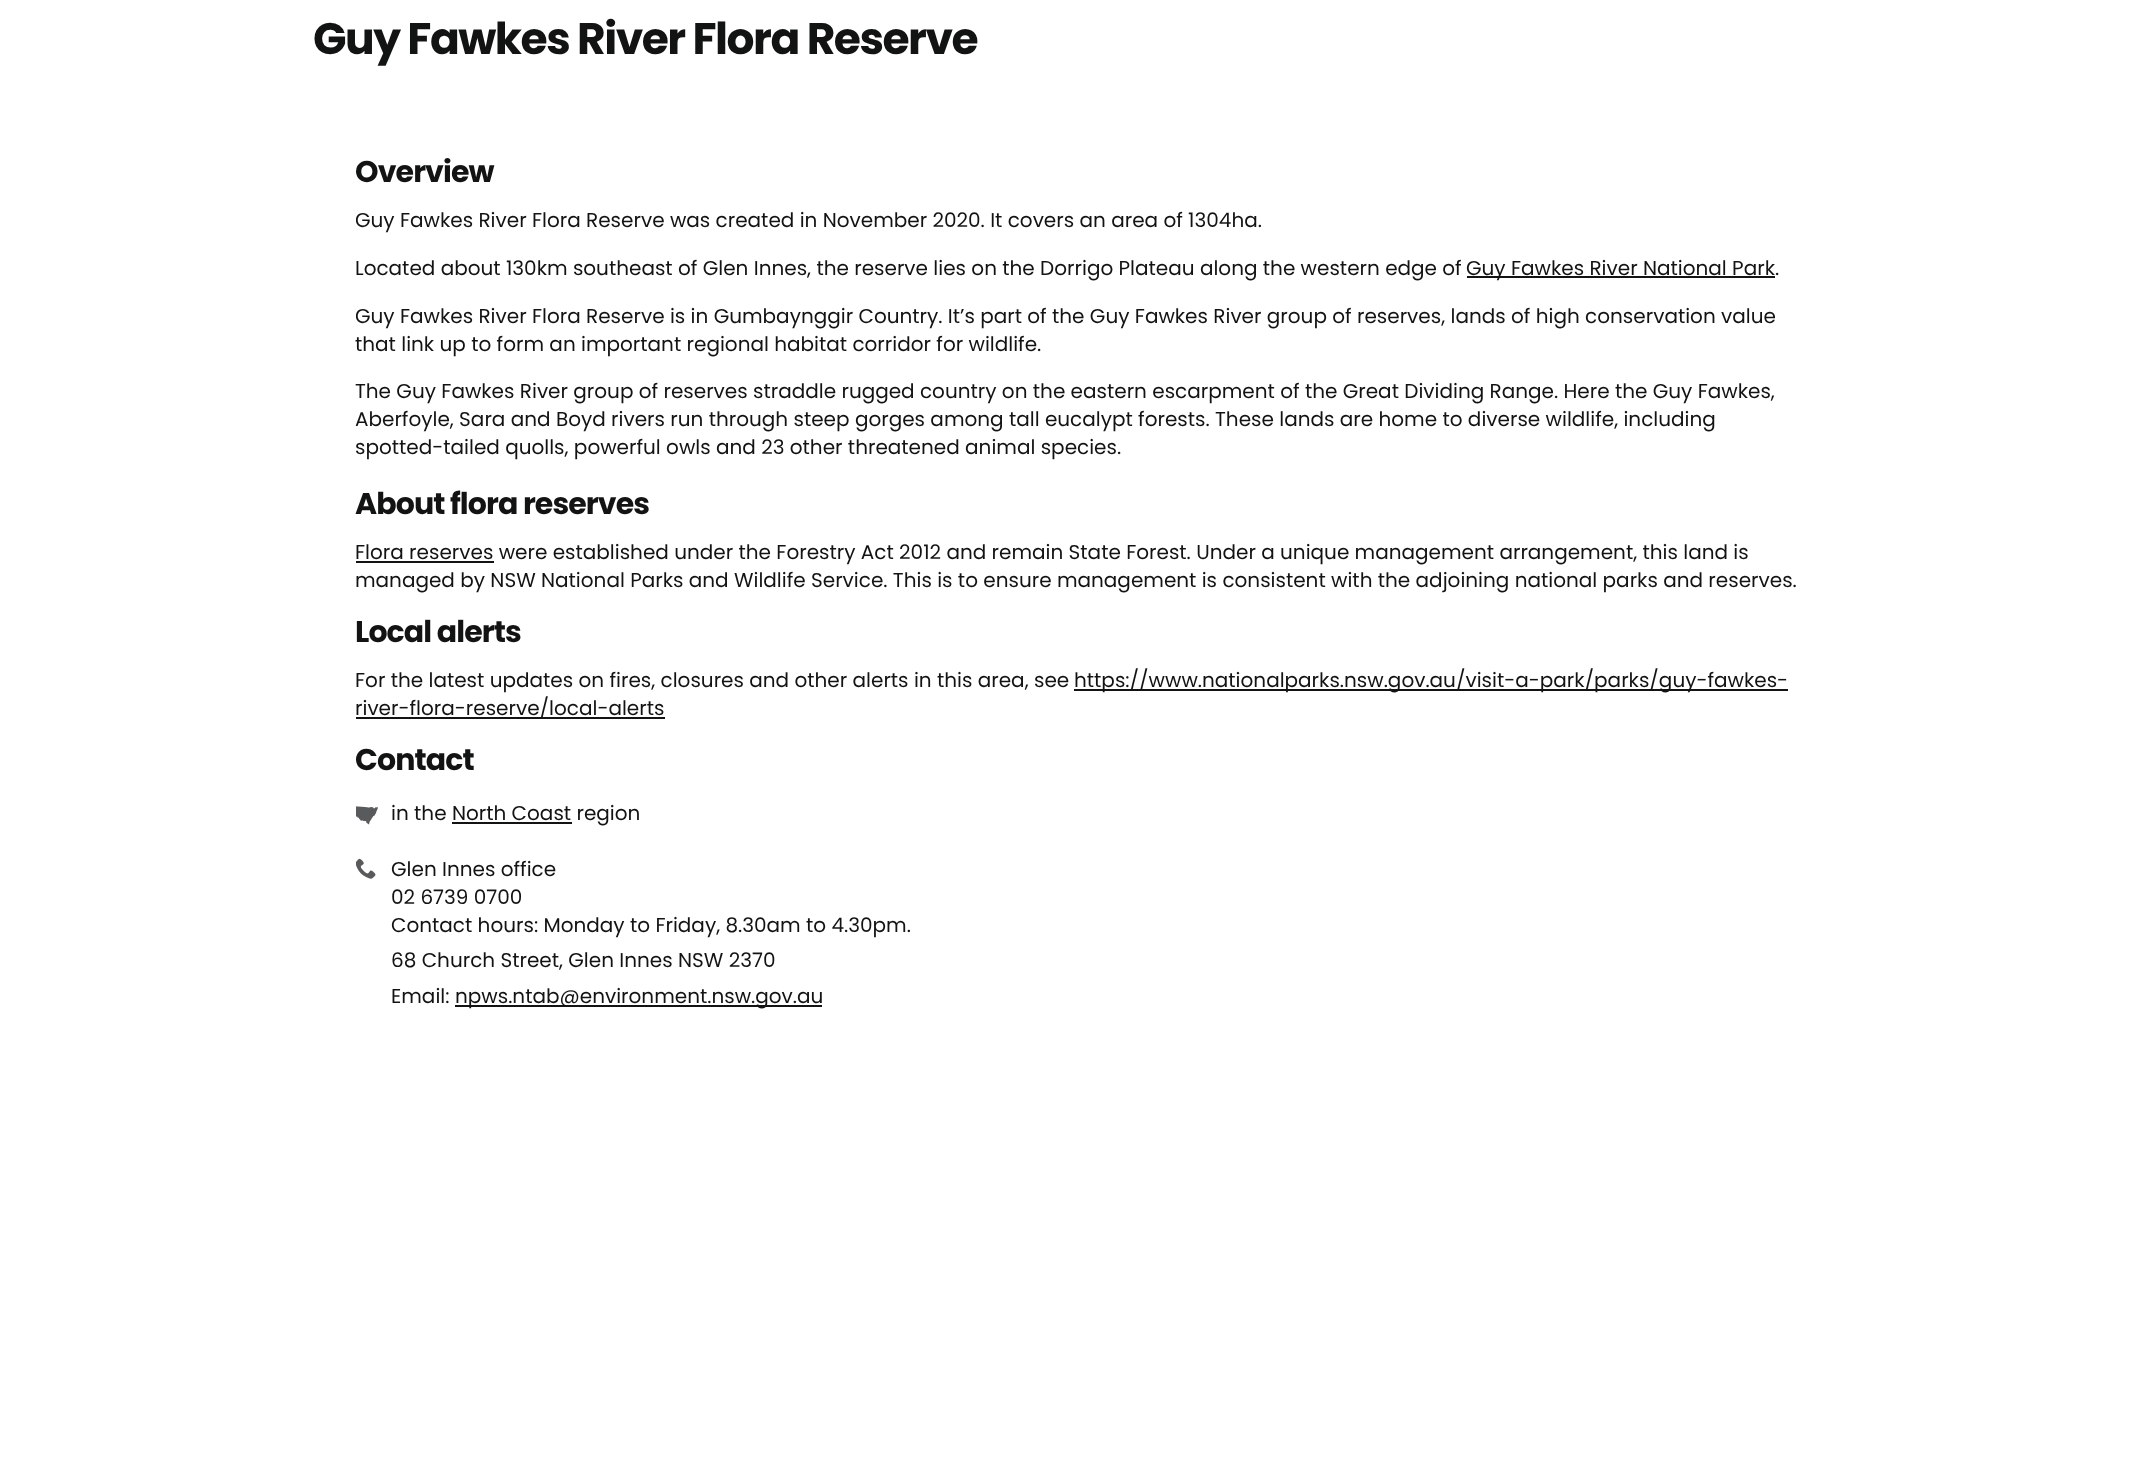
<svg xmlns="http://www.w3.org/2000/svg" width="2155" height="1467">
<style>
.a{font:bold 44px Poppins;letter-spacing:-1.5px;fill:#121313}
.b{font:bold 30px Poppins;letter-spacing:-0.9px;fill:#121313}
.c{font:20px Poppins;fill:#121313}
</style>
<defs>
<clipPath id="clip1"><path d="M356 105h1446v962H356z"/></clipPath>
</defs>
<rect width="100%" height="100%" fill="#fff"/>
<path fill="#121313" d="M1467 276h308v2H1467z"/>
<path fill="#121313" d="M356 561h138v2H356z"/>
<path fill="#121313" d="M1074 689h714v2H1074z"/>
<path fill="#121313" d="M356 717h309v2H356z"/>
<image href="1.png" x="356" y="806" width="22" height="19"/>
<path fill="#121313" d="M452 822h120v2H452z"/>
<image href="2.png" x="356" y="858" width="20" height="21"/>
<path fill="#121313" d="M455 1005h367v2H455z"/>
<text class="a" x="313" y="54">Guy Fawkes River Flora Reserve</text>
<g clip-path="url(#clip1)">
<text class="b" x="355" y="182">Overview</text>
<text class="c" x="355" y="227">Guy Fawkes River Flora Reserve was created in November 2020. It covers an area of 1304ha.</text>
</g>
<text class="c" x="355" y="275">Located about 130km southeast of Glen Innes, the reserve lies on the Dorrigo Plateau along the western edge of</text>
<text class="c" x="1466" y="275">Guy Fawkes River National Park.</text>
<g clip-path="url(#clip1)">
<text class="c" x="355" y="323">Guy Fawkes River Flora Reserve is in Gumbaynggir Country. It’s part of the Guy Fawkes River group of reserves, lands of high conservation value</text>
</g>
<text class="c" x="355" y="351">that link up to form an important regional habitat corridor for wildlife.</text>
<text class="c" x="355" y="398">The Guy Fawkes River group of reserves straddle rugged country on the eastern escarpment of the Great Dividing Range. Here the Guy Fawkes,</text>
<text class="c" x="355" y="426">Aberfoyle, Sara and Boyd rivers run through steep gorges among tall eucalypt forests. These lands are home to diverse wildlife, including</text>
<text class="c" x="355" y="454">spotted-tailed quolls, powerful owls and 23 other threatened animal species.</text>
<text class="b" x="355" y="514">About flora reserves</text>
<text class="c" x="355" y="559">Flora reserves were established under the Forestry Act 2012 and remain State Forest. Under a unique management arrangement, this land is</text>
<text class="c" x="355" y="587">managed by NSW National Parks and Wildlife Service. This is to ensure management is consistent with the adjoining national parks and reserves.</text>
<text class="b" x="355" y="642">Local alerts</text>
<text class="c" x="355" y="687">For the latest updates on fires, closures and other alerts in this area, see</text>
<text class="c" x="1074" y="687">https://www.nationalparks.nsw.gov.au/visit-a-park/parks/guy-fawkes-</text>
<text class="c" x="355" y="715">river-flora-reserve/local-alerts</text>
<g clip-path="url(#clip1)">
<text class="b" x="355" y="770">Contact</text>
</g>
<text class="c" x="391" y="820">in the North Coast region</text>
<text class="c" x="391" y="876">Glen Innes office</text>
<text class="c" x="391" y="904">02 6739 0700</text>
<text class="c" x="391" y="932">Contact hours: Monday to Friday, 8.30am to 4.30pm.</text>
<text class="c" x="391" y="967">68 Church Street, Glen Innes NSW 2370</text>
<text class="c" x="391" y="1003">Email:</text>
<text class="c" x="455" y="1003">npws.ntab@environment.nsw.gov.au</text>
</svg>
